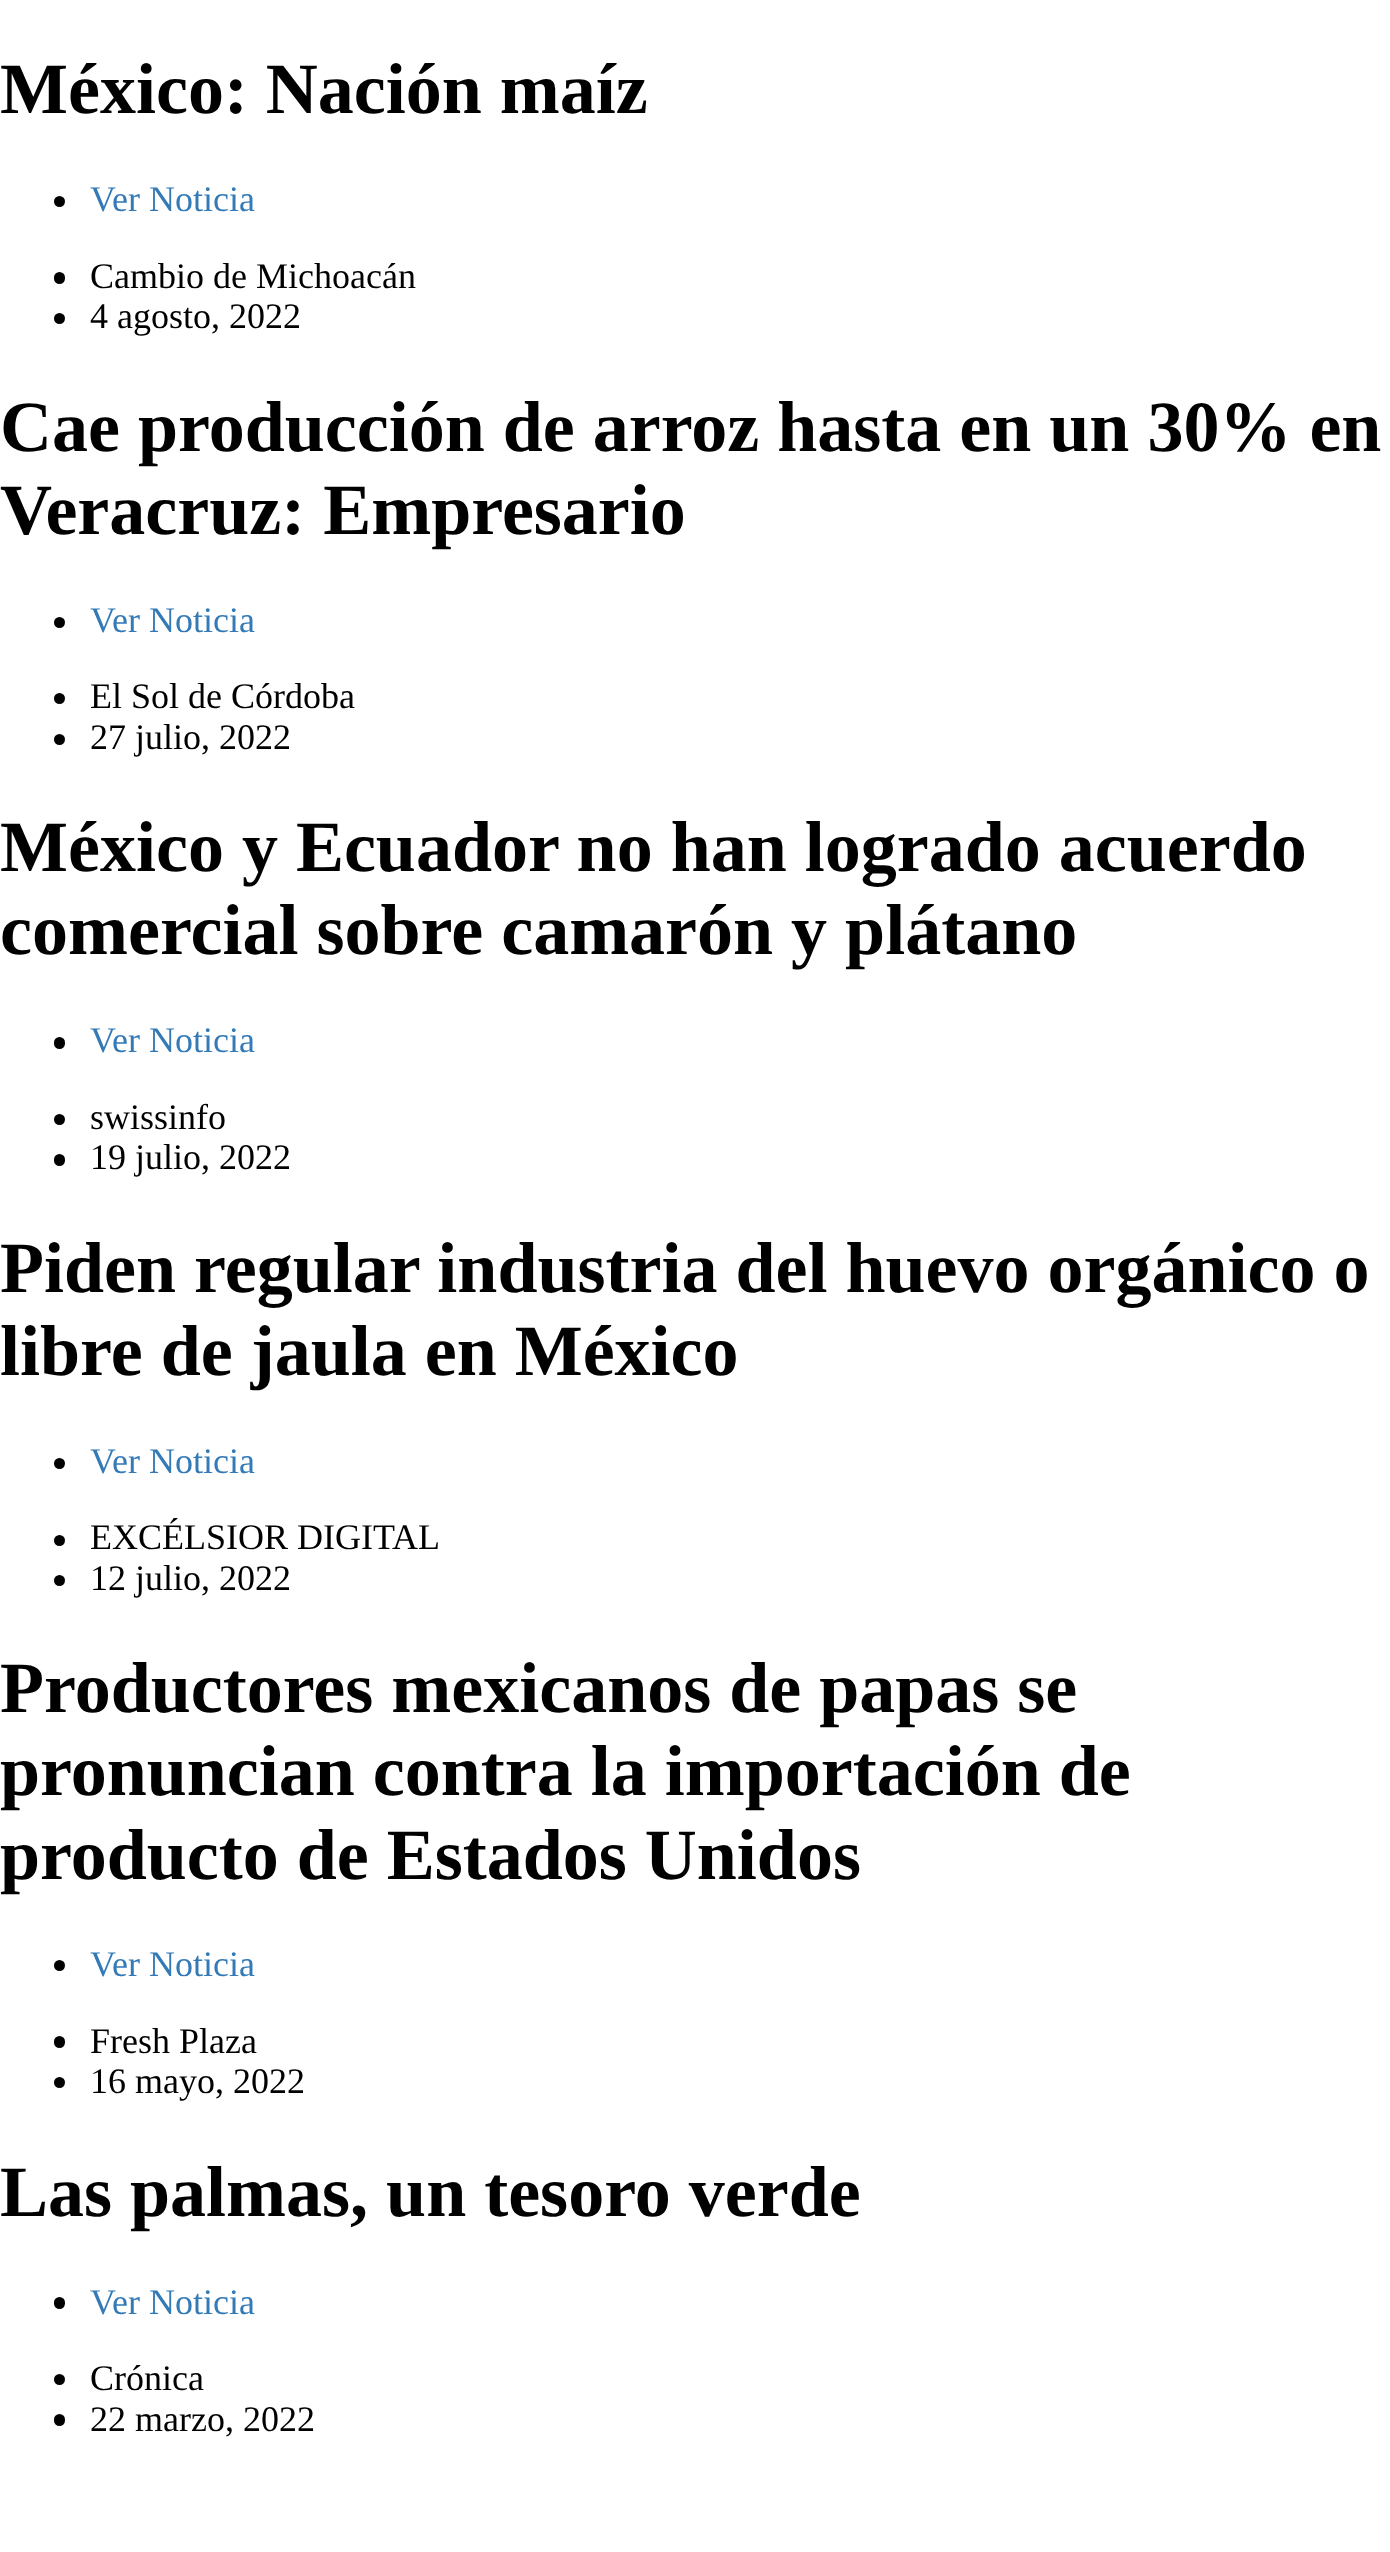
<svg xmlns="http://www.w3.org/2000/svg" width="1390" height="2552">
<style>
.a{font:bold 72px Liberation Serif;fill:#000}
.b{font:36px Liberation Serif;fill:#337ab7}
.c{font:36px Liberation Serif;fill:#000}
</style>
<rect width="100%" height="100%" fill="#fff"/>
<circle fill="#000" cx="59.5" cy="201.5" r="5.5"/>
<rect fill="#000" x="54" y="272" width="11" height="12" rx="5.5"/>
<circle fill="#000" cx="59.5" cy="318.5" r="5.5"/>
<circle fill="#000" cx="59.5" cy="622.5" r="5.5"/>
<circle fill="#000" cx="59.5" cy="698.5" r="5.5"/>
<circle fill="#000" cx="59.5" cy="739.5" r="5.5"/>
<rect fill="#000" x="54" y="1037" width="11" height="12" rx="5.5"/>
<circle fill="#000" cx="59.5" cy="1119.5" r="5.5"/>
<rect fill="#000" x="54" y="1154" width="11" height="12" rx="5.5"/>
<circle fill="#000" cx="59.5" cy="1463.5" r="5.5"/>
<circle fill="#000" cx="59.5" cy="1540.5" r="5.5"/>
<circle fill="#000" cx="59.5" cy="1580.5" r="5.5"/>
<circle fill="#000" cx="59.5" cy="1965.5" r="5.5"/>
<rect fill="#000" x="54" y="2036" width="11" height="12" rx="5.5"/>
<circle fill="#000" cx="59.5" cy="2082.5" r="5.5"/>
<rect fill="#000" x="54" y="2297" width="11" height="12" rx="5.5"/>
<circle fill="#000" cx="59.5" cy="2379.5" r="5.5"/>
<rect fill="#000" x="54" y="2414" width="11" height="12" rx="5.5"/>
<text class="a" x="0" y="113">México: Nación maíz</text>
<text class="b" x="90" y="211">Ver Noticia</text>
<text class="c" x="90" y="288">Cambio de Michoacán</text>
<text class="c" x="90" y="328">4 agosto, 2022</text>
<text class="a" x="0" y="451">Cae producción de arroz hasta en un 30% en</text>
<text class="a" x="0" y="534">Veracruz: Empresario</text>
<text class="b" x="90" y="632">Ver Noticia</text>
<text class="c" x="90" y="708">El Sol de Córdoba</text>
<text class="c" x="90" y="749">27 julio, 2022</text>
<text class="a" x="0" y="871">México y Ecuador no han logrado acuerdo</text>
<text class="a" x="0" y="954">comercial sobre camarón y plátano</text>
<text class="b" x="90" y="1052">Ver Noticia</text>
<text class="c" x="90" y="1129">swissinfo</text>
<text class="c" x="90" y="1169">19 julio, 2022</text>
<text class="a" x="0" y="1292">Piden regular industria del huevo orgánico o</text>
<text class="a" x="0" y="1375">libre de jaula en México</text>
<text class="b" x="90" y="1473">Ver Noticia</text>
<text class="c" x="90" y="1549">EXCÉLSIOR DIGITAL</text>
<text class="c" x="90" y="1590">12 julio, 2022</text>
<text class="a" x="0" y="1712">Productores mexicanos de papas se</text>
<text class="a" x="0" y="1795">pronuncian contra la importación de</text>
<text class="a" x="0" y="1879">producto de Estados Unidos</text>
<text class="b" x="90" y="1976">Ver Noticia</text>
<text class="c" x="90" y="2053">Fresh Plaza</text>
<text class="c" x="90" y="2093">16 mayo, 2022</text>
<text class="a" x="0" y="2216">Las palmas, un tesoro verde</text>
<text class="b" x="90" y="2314">Ver Noticia</text>
<text class="c" x="90" y="2390">Crónica</text>
<text class="c" x="90" y="2431">22 marzo, 2022</text>
</svg>
